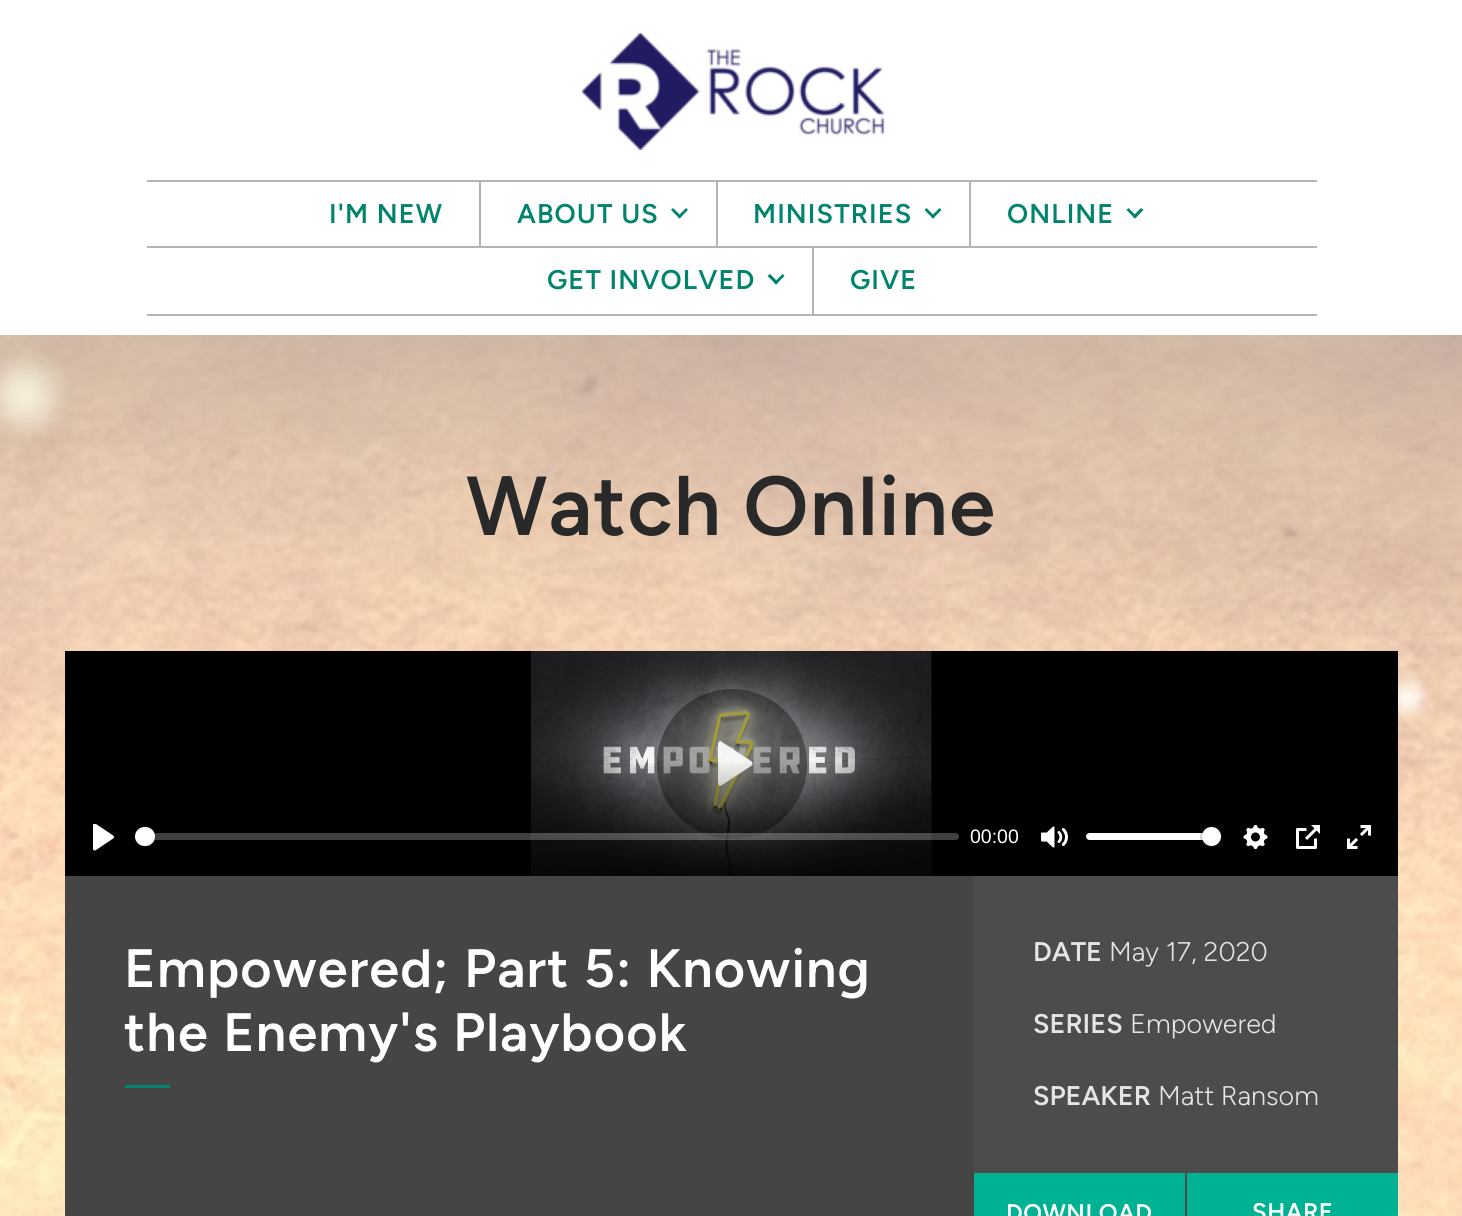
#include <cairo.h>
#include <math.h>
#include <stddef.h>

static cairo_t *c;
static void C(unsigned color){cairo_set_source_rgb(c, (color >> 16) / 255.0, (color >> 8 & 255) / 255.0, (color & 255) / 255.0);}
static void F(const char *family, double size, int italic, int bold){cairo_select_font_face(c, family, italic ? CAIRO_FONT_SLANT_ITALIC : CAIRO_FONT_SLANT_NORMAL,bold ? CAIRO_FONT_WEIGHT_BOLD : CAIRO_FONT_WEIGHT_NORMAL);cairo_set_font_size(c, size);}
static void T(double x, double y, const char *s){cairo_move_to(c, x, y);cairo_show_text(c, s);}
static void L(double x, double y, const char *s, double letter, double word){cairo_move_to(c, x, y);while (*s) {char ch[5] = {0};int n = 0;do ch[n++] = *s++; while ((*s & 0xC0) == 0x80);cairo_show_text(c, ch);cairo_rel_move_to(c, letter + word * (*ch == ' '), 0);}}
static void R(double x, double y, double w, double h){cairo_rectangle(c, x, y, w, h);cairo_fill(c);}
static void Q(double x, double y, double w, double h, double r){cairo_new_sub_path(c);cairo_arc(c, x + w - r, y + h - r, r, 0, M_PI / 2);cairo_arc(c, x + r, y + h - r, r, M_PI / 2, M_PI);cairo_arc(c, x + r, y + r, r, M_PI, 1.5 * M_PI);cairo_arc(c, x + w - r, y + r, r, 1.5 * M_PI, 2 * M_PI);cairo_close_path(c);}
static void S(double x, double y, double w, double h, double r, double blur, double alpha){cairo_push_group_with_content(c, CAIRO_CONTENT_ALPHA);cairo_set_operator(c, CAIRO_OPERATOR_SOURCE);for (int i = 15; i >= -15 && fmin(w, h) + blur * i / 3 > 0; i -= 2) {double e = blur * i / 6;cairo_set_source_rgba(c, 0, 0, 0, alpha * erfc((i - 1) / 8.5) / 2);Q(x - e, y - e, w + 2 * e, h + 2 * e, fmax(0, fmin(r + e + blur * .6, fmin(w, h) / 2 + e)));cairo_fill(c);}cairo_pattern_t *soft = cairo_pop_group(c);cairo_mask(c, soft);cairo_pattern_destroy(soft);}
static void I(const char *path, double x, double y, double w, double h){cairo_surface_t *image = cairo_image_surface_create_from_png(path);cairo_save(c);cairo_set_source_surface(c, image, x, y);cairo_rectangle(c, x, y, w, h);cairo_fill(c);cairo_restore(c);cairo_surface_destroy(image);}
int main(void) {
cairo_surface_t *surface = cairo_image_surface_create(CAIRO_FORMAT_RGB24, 1462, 1216);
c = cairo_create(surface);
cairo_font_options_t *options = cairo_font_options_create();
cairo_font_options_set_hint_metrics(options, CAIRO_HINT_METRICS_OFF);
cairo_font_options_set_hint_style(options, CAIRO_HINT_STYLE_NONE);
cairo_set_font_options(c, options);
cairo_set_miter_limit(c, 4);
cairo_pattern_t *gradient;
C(0xffffff);
cairo_paint(c);
I("1.png",581,32,304,118);
C(0xb4b4b4);
R(147,180,1170,2);
R(147,314,1170,2);
F("Figtree SemiBold",27,0,0);
C(0x00846e);
L(329,223,"I'M NEW",1.1,0);
C(0xb4b4b4);
R(147,246,1170,2);
R(479,182,2,66);
C(0x00846e);
L(517,223,"ABOUT US",1.1,0);
cairo_new_path(c);
cairo_move_to(c,686,208);
cairo_line_to(c,688,210);
cairo_line_to(c,679.5,218.5);
cairo_line_to(c,677.5,216.5);
cairo_close_path(c);
cairo_fill(c);
cairo_new_path(c);
cairo_move_to(c,673,208);
cairo_line_to(c,681.5,216.5);
cairo_line_to(c,679.5,218.5);
cairo_line_to(c,671,210);
cairo_close_path(c);
cairo_fill(c);
C(0xb4b4b4);
R(716,182,2,66);
C(0x00846e);
L(753,223,"MINISTRIES",1.1,0);
cairo_new_path(c);
cairo_move_to(c,939.5,208);
cairo_line_to(c,941.5,210);
cairo_line_to(c,933,218.5);
cairo_line_to(c,931,216.5);
cairo_close_path(c);
cairo_fill(c);
cairo_new_path(c);
cairo_move_to(c,926.5,208);
cairo_line_to(c,935,216.5);
cairo_line_to(c,933,218.5);
cairo_line_to(c,924.5,210);
cairo_close_path(c);
cairo_fill(c);
C(0xb4b4b4);
R(969,182,2,66);
C(0x00846e);
L(1007,223,"ONLINE",1.1,0);
cairo_new_path(c);
cairo_move_to(c,1141,208);
cairo_line_to(c,1143.5,210);
cairo_line_to(c,1135,218.5);
cairo_line_to(c,1132.5,216.5);
cairo_close_path(c);
cairo_fill(c);
cairo_new_path(c);
cairo_move_to(c,1128.5,208);
cairo_line_to(c,1137,216.5);
cairo_line_to(c,1135,218.5);
cairo_line_to(c,1126.5,210);
cairo_close_path(c);
cairo_fill(c);
L(547,289,"GET INVOLVED",1.1,0);
cairo_new_path(c);
cairo_move_to(c,782.5,274);
cairo_line_to(c,784.5,276);
cairo_line_to(c,776,284.5);
cairo_line_to(c,774,282.5);
cairo_close_path(c);
cairo_fill(c);
cairo_new_path(c);
cairo_move_to(c,770,274);
cairo_line_to(c,778.5,282.5);
cairo_line_to(c,776,284.5);
cairo_line_to(c,767.5,276);
cairo_close_path(c);
cairo_fill(c);
C(0xb4b4b4);
R(812,248,2,66);
C(0x00846e);
L(850,289,"GIVE",1.1,0);
I("2.png",0,335,1462,881);
F("Figtree SemiBold",83.5,0,0);
C(0x292929);
L(466,535,"Watch Online",1.1,0);
C(0x000000);
R(65,651,1333,225);
I("3.png",531,651,401,225);
cairo_set_source_rgba(c,0,0,0,0.36);
cairo_arc(c,732,764,75,0,2 * M_PI);
cairo_fill(c);
cairo_set_source_rgba(c,1,1,1,0.9);
cairo_new_path(c);
cairo_move_to(c,751,761);
cairo_line_to(c,722,742);
cairo_curve_to(c,720,740,718,742,718,744);
cairo_line_to(c,718,783);
cairo_curve_to(c,718,785,720,787,722,785);
cairo_line_to(c,751,766);
cairo_curve_to(c,753,765,753,762,751,761);
cairo_close_path(c);
cairo_fill(c);
gradient = cairo_pattern_create_linear(731,760,731,876);
cairo_pattern_add_color_stop_rgba(gradient,0,0,0,0,0);
cairo_pattern_add_color_stop_rgba(gradient,1,0,0,0,.75);
cairo_set_source(c,gradient);
cairo_pattern_destroy(gradient);
R(531,763,401,113);
I("4.png",93,824,21,27);
cairo_set_source_rgba(c,1,1,1,0.25);
Q(135,833,824,7,3.5);
cairo_fill(c);
Q(135,826,20,21,10);
cairo_set_source_rgba(c,0.137,0.157,0.184,0.2);
cairo_stroke(c);
C(0xffffff);
Q(135,827,20,19,9.5);
cairo_fill(c);
F("Liberation Sans",19.5,0,0);
T(970,843,"00:00");
I("5.png",1041,826,27,22);
Q(1086,833,135,7,3.5);
cairo_fill(c);
cairo_arc(c,1211.5,836.5,10.5,0,2 * M_PI);
cairo_set_source_rgba(c,0.137,0.157,0.184,0.2);
cairo_stroke(c);
C(0x23282f);
S(1202,828,19,20,9.5,1,.15);
C(0xffffff);
cairo_arc(c,1211.5,836.5,9.5,0,2 * M_PI);
cairo_fill(c);
I("6.png",1243,825,25,24);
I("7.png",1296,825,24,24);
I("8.png",1347,825,24,24);
C(0x454545);
R(65,876,909,340);
F("Figtree SemiBold",54,0,0);
C(0xffffff);
L(124,987,"Empowered; Part 5: Knowing",1.1,0);
L(124,1051,"the Enemy's Playbook",1.1,0);
C(0x00846e);
R(125,1085,45,3);
C(0x4c4c4c);
R(974,876,424,340);
F("Figtree SemiBold",27,0,0);
C(0xe5e5e5);
T(1033,961,"DATE");
F("Figtree Light",27,0,0);
T(1109,961,"May 17, 2020");
F("Figtree SemiBold",27,0,0);
T(1033,1033,"SERIES");
F("Figtree Light",27,0,0);
T(1130,1033,"Empowered");
F("Figtree SemiBold",27,0,0);
T(1033,1105,"SPEAKER");
F("Figtree Light",27,0,0);
T(1158,1105,"Matt Ransom");
C(0x00b294);
R(974,1173,211,43);
F("Figtree SemiBold",24,0,0);
C(0xffffff);
L(1006,1221,"DOWNLOAD",.5,0);
C(0x00b294);
R(1187,1173,211,43);
C(0xffffff);
L(1252,1220,"SHARE",.5,0);
cairo_surface_write_to_png(surface, "o.png");
cairo_font_options_destroy(options);
cairo_destroy(c);
cairo_surface_destroy(surface);
return 0;
}
